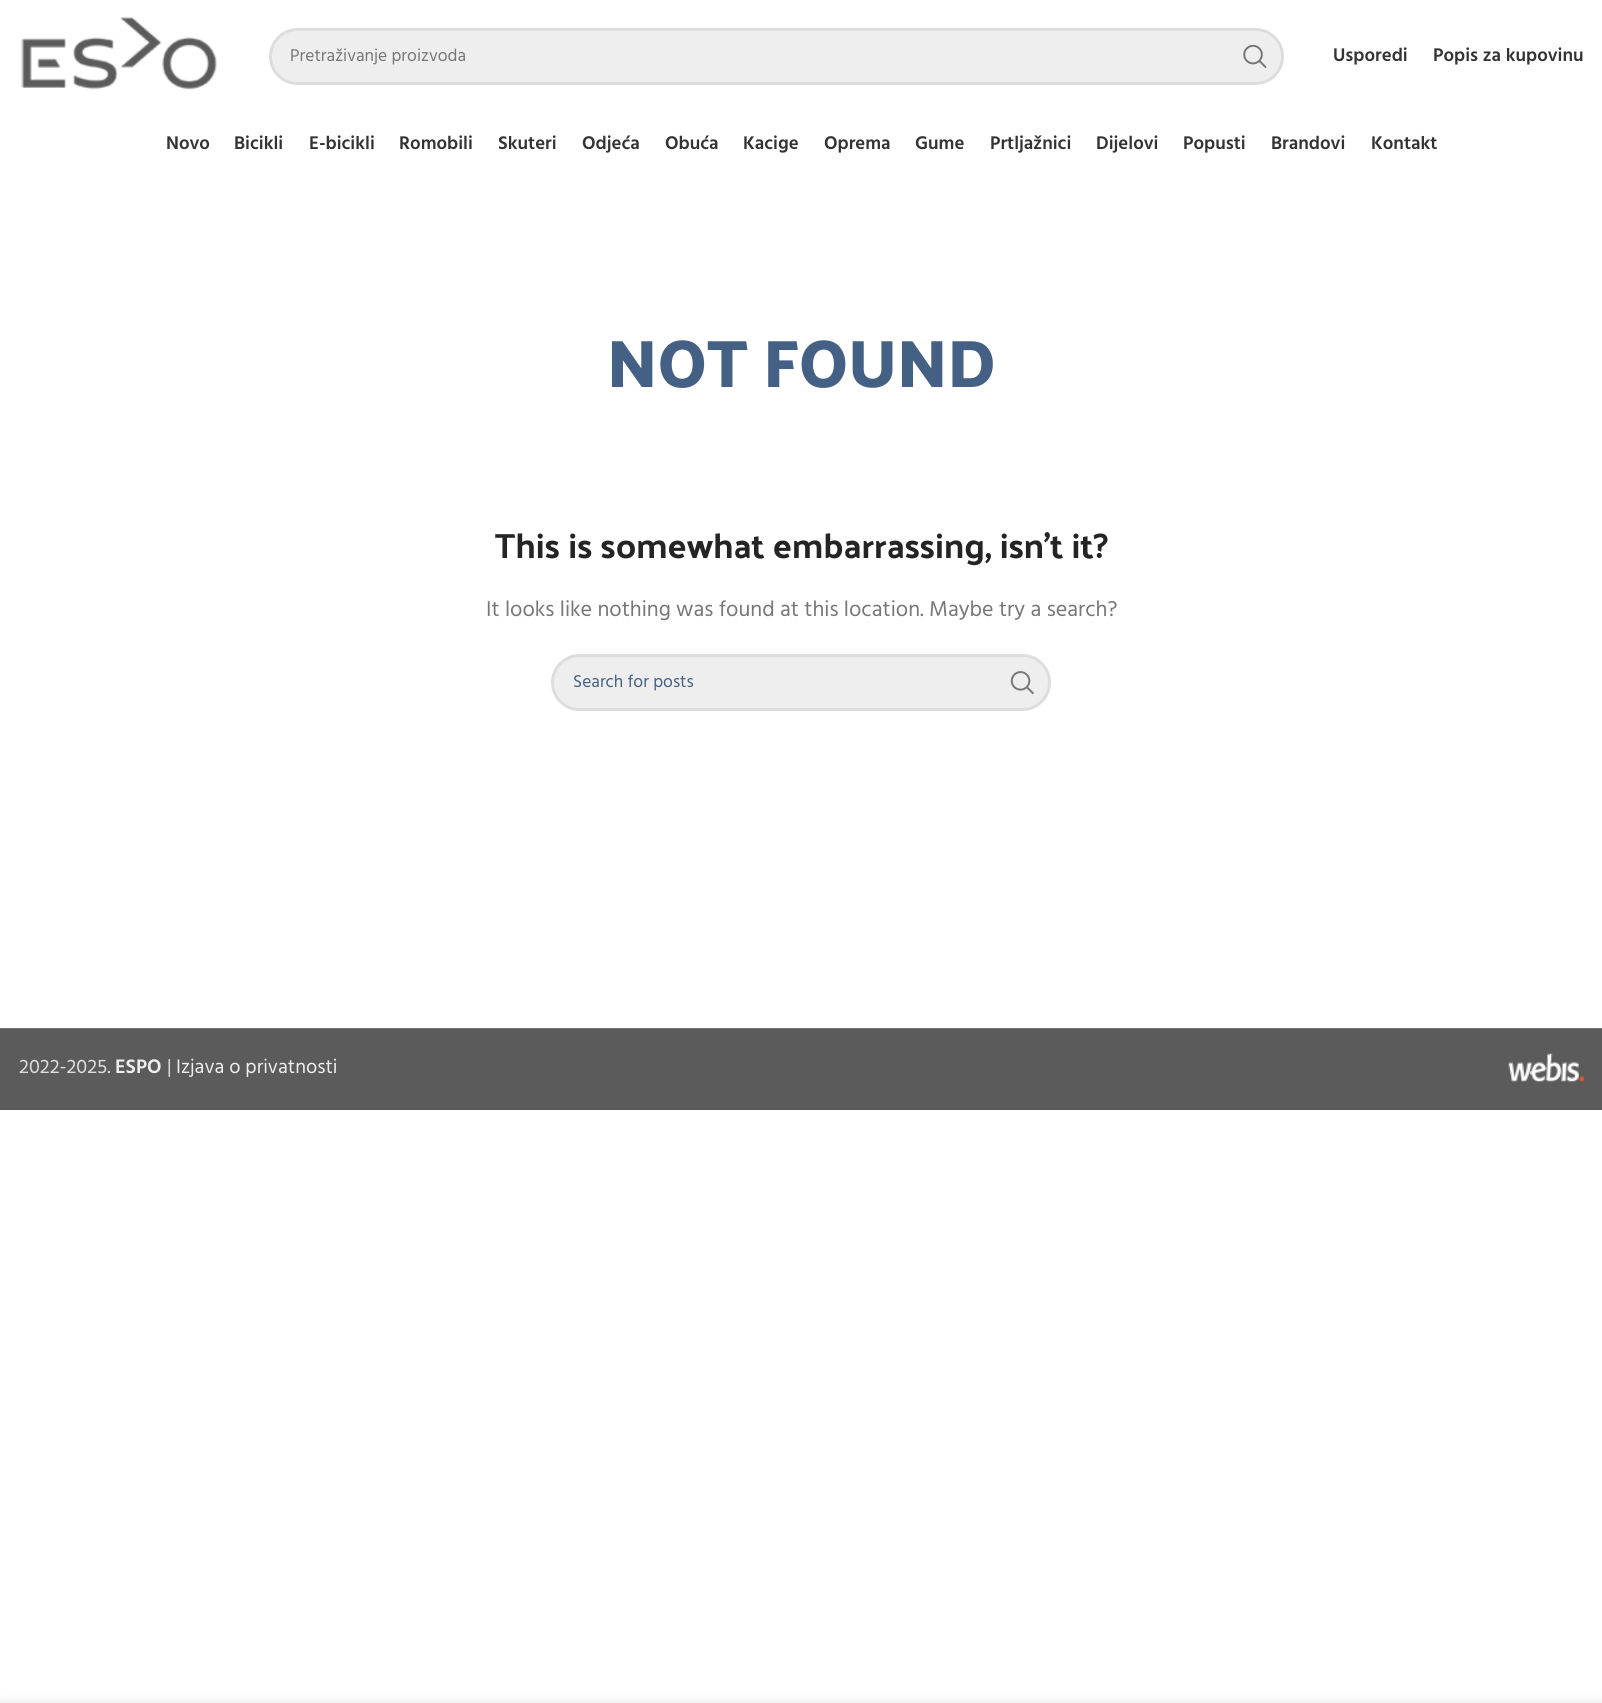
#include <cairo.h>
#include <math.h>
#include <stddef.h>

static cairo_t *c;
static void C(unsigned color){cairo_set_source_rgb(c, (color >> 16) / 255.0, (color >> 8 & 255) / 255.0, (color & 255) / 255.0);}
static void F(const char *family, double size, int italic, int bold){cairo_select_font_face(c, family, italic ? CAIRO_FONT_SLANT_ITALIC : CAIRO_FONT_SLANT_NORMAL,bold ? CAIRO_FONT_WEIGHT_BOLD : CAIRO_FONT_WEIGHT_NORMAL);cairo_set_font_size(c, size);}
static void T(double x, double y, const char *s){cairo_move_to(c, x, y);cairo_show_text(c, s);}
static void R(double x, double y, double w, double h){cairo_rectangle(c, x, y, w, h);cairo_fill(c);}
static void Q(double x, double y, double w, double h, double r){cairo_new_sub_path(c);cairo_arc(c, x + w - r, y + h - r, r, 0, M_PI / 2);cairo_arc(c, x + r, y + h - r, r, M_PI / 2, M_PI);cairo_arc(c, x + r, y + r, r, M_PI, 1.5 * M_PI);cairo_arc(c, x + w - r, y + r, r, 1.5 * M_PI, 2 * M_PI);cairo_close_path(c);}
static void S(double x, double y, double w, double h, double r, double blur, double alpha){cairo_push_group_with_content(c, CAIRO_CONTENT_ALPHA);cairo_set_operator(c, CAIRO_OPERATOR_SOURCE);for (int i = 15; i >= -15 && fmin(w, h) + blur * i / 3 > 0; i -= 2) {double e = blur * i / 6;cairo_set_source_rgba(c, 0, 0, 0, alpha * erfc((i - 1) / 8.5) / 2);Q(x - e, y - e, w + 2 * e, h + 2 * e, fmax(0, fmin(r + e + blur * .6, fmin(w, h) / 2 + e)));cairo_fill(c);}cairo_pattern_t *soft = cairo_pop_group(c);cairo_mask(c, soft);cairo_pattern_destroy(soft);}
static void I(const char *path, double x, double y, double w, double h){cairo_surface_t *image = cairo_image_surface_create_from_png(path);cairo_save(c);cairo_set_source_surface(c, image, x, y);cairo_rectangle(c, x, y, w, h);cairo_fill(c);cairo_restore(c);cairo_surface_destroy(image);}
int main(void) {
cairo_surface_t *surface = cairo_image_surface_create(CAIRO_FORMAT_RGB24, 1602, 1703);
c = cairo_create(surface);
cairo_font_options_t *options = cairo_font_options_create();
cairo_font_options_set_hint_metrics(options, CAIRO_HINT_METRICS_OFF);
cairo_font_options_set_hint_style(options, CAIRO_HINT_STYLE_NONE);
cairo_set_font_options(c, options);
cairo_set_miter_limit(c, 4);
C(0xffffff);
cairo_paint(c);
I("1.png",21,16,196,74);
C(0xeeeeee);
Q(270.5,29.5,1012,54,27);
cairo_fill_preserve(c);
C(0xdddddd);
cairo_set_line_width(c,3);
cairo_stroke(c);
F("Hind",17.5,0,0);
C(0x777777);
T(290,61,"Pretraživanje proizvoda");
I("2.png",1243,44,24,24);
F("Hind SemiBold",18.75,0,0);
C(0x333333);
T(1333,61,"Usporedi");
T(1433,61,"Popis za kupovinu");
T(166,149,"Novo");
T(234,149,"Bicikli");
T(309,149,"E-bicikli");
T(399,149,"Romobili");
T(498,149,"Skuteri");
T(582,149,"Odjeća");
T(665,149,"Obuća");
T(743,149,"Kacige");
T(824,149,"Oprema");
T(915,149,"Gume");
T(990,149,"Prtljažnici");
T(1096,149,"Dijelovi");
T(1183,149,"Popusti");
T(1271,149,"Brandovi");
T(1371,149,"Kontakt");
F("Palanquin Dark SemiBold",67.25,0,0);
C(0x446084);
T(607,387,"NOT FOUND");
F("Palanquin Dark",35,0,0);
C(0x242424);
T(495,558,"This is somewhat embarrassing, isn’t it?");
F("Hind",22,0,0);
C(0x777777);
T(486,616,"It looks like nothing was found at this location. Maybe try a search?");
C(0xeeeeee);
Q(552.5,655.5,497,54,27);
cairo_fill_preserve(c);
C(0xdddddd);
cairo_stroke(c);
F("Hind",17.5,0,0);
C(0x446084);
T(573,687,"Search for posts");
I("3.png",1010,671,24,24);
C(0x5b5b5b);
R(0,1029,1602,81);
C(0x747474);
R(0,1028,1602,1);
F("Hind",20,0,0);
C(0xdedede);
T(19,1073,"2022-2025.");
F("Hind SemiBold",20,0,0);
C(0xefefef);
T(115,1073,"ESPO");
F("Hind",20,0,0);
C(0xdedede);
T(167,1073,"|");
C(0xefefef);
T(176,1073,"Izjava o privatnosti");
I("4.png",1508,1053,76,29);
C(0x000000);
S(0,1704,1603,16,0,5.5,.14);
cairo_surface_write_to_png(surface, "o.png");
cairo_font_options_destroy(options);
cairo_destroy(c);
cairo_surface_destroy(surface);
return 0;
}
